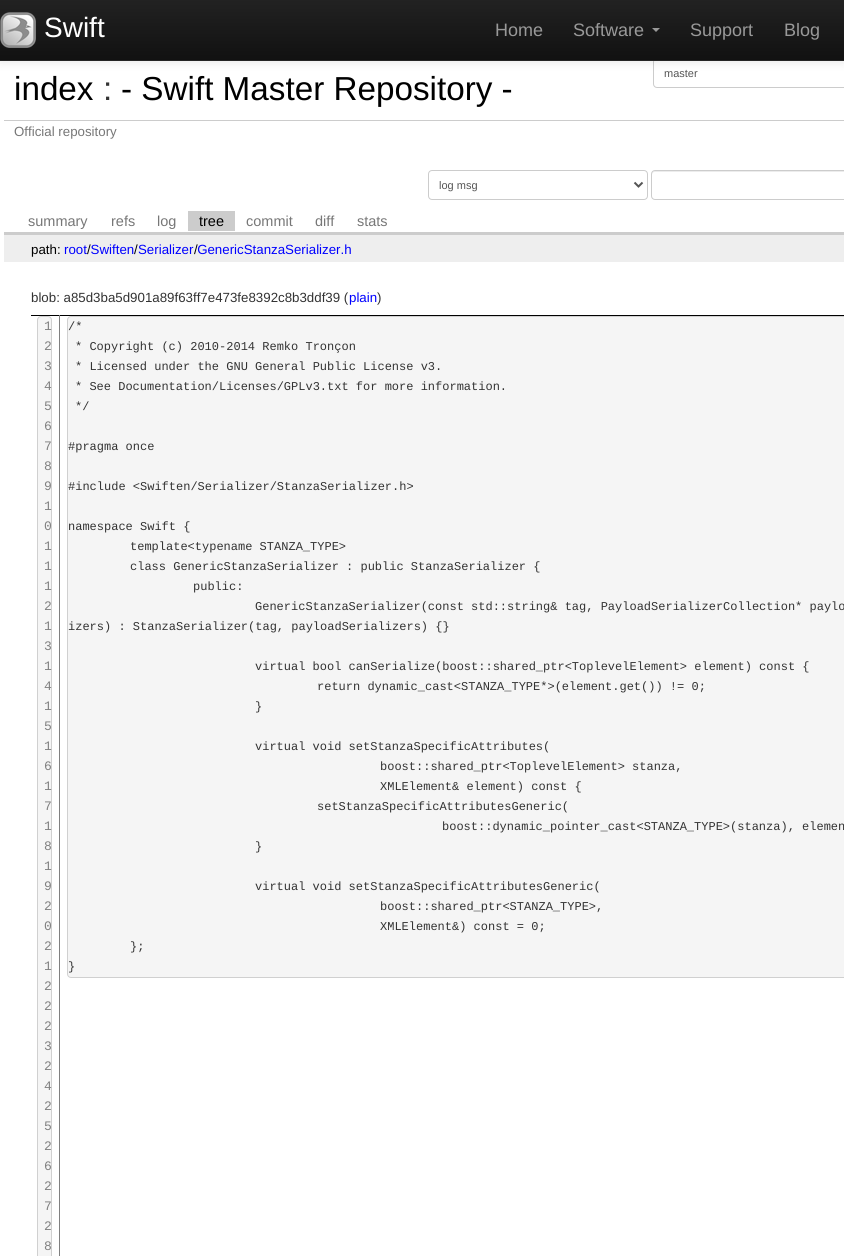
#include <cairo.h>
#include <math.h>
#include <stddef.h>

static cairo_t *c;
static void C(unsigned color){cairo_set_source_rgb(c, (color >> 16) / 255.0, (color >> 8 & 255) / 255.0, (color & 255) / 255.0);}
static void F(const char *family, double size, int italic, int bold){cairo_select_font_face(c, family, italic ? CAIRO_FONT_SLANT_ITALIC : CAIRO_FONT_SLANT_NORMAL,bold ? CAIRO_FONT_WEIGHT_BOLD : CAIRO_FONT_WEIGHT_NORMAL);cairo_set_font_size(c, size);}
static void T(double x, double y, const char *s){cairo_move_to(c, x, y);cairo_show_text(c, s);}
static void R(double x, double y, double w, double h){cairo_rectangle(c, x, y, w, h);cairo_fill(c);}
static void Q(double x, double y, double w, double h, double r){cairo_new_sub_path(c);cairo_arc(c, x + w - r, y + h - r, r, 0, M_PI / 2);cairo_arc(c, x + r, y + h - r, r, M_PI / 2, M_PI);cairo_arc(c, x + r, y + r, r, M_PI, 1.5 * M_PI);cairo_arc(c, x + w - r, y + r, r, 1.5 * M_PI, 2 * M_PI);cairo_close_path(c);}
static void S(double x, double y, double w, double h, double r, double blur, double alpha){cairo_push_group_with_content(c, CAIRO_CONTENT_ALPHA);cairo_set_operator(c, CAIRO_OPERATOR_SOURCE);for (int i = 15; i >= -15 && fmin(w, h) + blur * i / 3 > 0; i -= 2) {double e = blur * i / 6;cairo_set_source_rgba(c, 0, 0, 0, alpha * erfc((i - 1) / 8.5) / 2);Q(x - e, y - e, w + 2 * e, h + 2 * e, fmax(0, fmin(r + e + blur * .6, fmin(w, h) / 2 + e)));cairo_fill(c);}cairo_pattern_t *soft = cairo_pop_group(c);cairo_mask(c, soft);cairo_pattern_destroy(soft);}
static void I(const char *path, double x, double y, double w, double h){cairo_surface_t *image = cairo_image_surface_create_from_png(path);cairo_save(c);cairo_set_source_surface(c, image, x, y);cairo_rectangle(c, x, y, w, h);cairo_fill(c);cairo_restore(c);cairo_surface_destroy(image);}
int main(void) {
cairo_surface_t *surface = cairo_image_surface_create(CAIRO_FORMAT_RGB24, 844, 1256);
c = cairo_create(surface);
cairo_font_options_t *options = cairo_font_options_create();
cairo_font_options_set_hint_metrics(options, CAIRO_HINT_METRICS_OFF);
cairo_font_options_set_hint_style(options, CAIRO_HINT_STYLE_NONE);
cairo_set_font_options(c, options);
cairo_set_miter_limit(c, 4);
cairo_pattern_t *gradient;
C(0xffffff);
cairo_paint(c);
Q(653.5,58.5,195,29,3.5);
C(0xcccccc);
cairo_set_line_width(c,1);
cairo_stroke(c);
C(0x000000);
S(0,1,844,61,0,5,.1);
gradient = cairo_pattern_create_linear(422,0,422,60);
cairo_pattern_add_color_stop_rgba(gradient,0,0.133,0.133,0.133,1);
cairo_pattern_add_color_stop_rgba(gradient,1,0.067,0.067,0.067,1);
cairo_set_source(c,gradient);
cairo_pattern_destroy(gradient);
R(0,0,844,60);
C(0x252525);
R(0,60,844,1);
I("1.png",0,12,36,36);
F("Liberation Sans",28,0,0);
C(0xffffff);
T(44,37,"Swift");
F("Liberation Sans",18,0,0);
C(0x999999);
T(495,36,"Home");
T(573,36,"Software");
cairo_new_path(c);
cairo_move_to(c,652,28);
cairo_line_to(c,660,28);
cairo_line_to(c,656,32);
cairo_close_path(c);
cairo_fill(c);
T(690,36,"Support");
T(784,36,"Blog");
F("Liberation Sans",11,0,0);
C(0x555555);
T(664,77,"master");
F("Liberation Sans",33.25,0,0);
C(0x000000);
T(14,100,"index");
C(0x333333);
T(103,100,":");
C(0x000000);
T(121,100,"- Swift Master Repository -");
C(0xcccccc);
R(4,120,840,1);
F("Liberation Sans",13.3,0,0);
C(0x777777);
T(14,136,"Official repository");
C(0xcccccc);
R(4,232,840,3);
Q(428.5,170.5,219,29,3.5);
cairo_stroke(c);
cairo_new_path(c);
cairo_move_to(c,634.5,182.5);
cairo_line_to(c,638.5,186.5);
cairo_line_to(c,642.5,182.5);
C(0x555555);
cairo_set_line_width(c,2);
cairo_stroke(c);
F("Liberation Sans",11,0,0);
T(439,189,"log msg");
C(0xececec);
cairo_new_path(c);
cairo_move_to(c,655,172);
cairo_line_to(c,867,172);
cairo_curve_to(c,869,172,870,173,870,175);
cairo_line_to(c,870,174);
cairo_curve_to(c,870,172,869,171,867,171);
cairo_line_to(c,655,171);
cairo_curve_to(c,653,171,652,172,652,174);
cairo_line_to(c,652,175);
cairo_curve_to(c,652,173,653,172,655,172);
cairo_close_path(c);
cairo_fill(c);
Q(651.5,170.5,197,29,3.5);
C(0xcccccc);
cairo_set_line_width(c,1);
cairo_stroke(c);
F("Liberation Sans",14.5,0,0);
C(0x777777);
T(28,226,"summary");
T(111,226,"refs");
T(157,226,"log");
C(0xcccccc);
R(188,211,47,20);
C(0x000000);
T(199,226,"tree");
C(0x777777);
T(246,226,"commit");
T(315,226,"diff");
T(357,226,"stats");
C(0xeeeeee);
R(4,235,840,27);
F("Liberation Sans",13.3,0,0);
C(0x000000);
T(31,254,"path:");
C(0x0000ff);
T(64,254,"root Swiften");
C(0x000000);
T(87,254,"/");
T(134,254,"/");
C(0x0000ff);
T(138,254,"Serializer GenericStanzaSerializer.h");
C(0x000000);
T(194,254,"/");
C(0x333333);
T(31,302,"blob: a85d3ba5d901a89f63ff7e473fe8392c8b3ddf39 (");
C(0x0000ff);
T(349,302,"plain");
C(0x333333);
T(377,302,")");
C(0x000000);
R(31,315,813,1);
C(0x808080);
R(59,315,1,941);
C(0xf5f5f5);
Q(37,316,15,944,4);
cairo_fill(c);
Q(37.5,316.5,14,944,3.5);
cairo_set_source_rgba(c,0,0,0,0.15);
cairo_stroke(c);
F("Liberation Mono",13,0,0);
C(0x808080);
T(44,330,"1");
T(44,350,"2");
T(44,370,"3");
T(44,390,"4");
T(44,410,"5");
T(44,430,"6");
T(44,450,"7");
T(44,470,"8");
T(44,490,"9");
T(44,510,"1");
T(44,530,"0");
T(44,550,"1");
T(44,570,"1");
T(44,590,"1");
T(44,610,"2");
T(44,630,"1");
T(44,650,"3");
T(44,670,"1");
T(44,690,"4");
T(44,710,"1");
T(44,730,"5");
T(44,750,"1");
T(44,770,"6");
T(44,790,"1");
T(44,810,"7");
T(44,830,"1");
T(44,850,"8");
T(44,870,"1");
T(44,890,"9");
T(44,910,"2");
T(44,930,"0");
T(44,950,"2");
T(44,970,"1");
T(44,990,"2");
T(44,1010,"2");
T(44,1030,"2");
T(44,1050,"3");
T(44,1070,"2");
T(44,1090,"4");
T(44,1110,"2");
T(44,1130,"5");
T(44,1150,"2");
T(44,1170,"6");
T(44,1190,"2");
T(44,1210,"7");
T(44,1230,"2");
T(44,1250,"8");
C(0xf5f5f5);
Q(67,316,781,662,4);
cairo_fill(c);
Q(67.5,316.5,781,661,3.5);
cairo_set_source_rgba(c,0,0,0,0.15);
cairo_stroke(c);
F("Liberation Mono",12,0,0);
C(0x333333);
T(68,330,"/*");
T(75,350,"* Copyright (c) 2010-2014 Remko Tronçon");
T(75,370,"* Licensed under the GNU General Public License v3.");
T(75,390,"* See Documentation/Licenses/GPLv3.txt for more information.");
T(75,410,"*/");
T(68,450,"#pragma once");
T(68,490,"#include <Swiften/Serializer/StanzaSerializer.h>");
T(68,530,"namespace Swift {");
T(130,550,"template<typename STANZA_TYPE>");
T(130,570,"class GenericStanzaSerializer : public StanzaSerializer {");
T(193,590,"public:");
T(255,610,"GenericStanzaSerializer(const std::string& tag, PayloadSerializerCollection* paylo");
T(68,630,"izers) : StanzaSerializer(tag, payloadSerializers) {}");
T(255,670,"virtual bool canSerialize(boost::shared_ptr<ToplevelElement> element) const {");
T(317,690,"return dynamic_cast<STANZA_TYPE*>(element.get()) != 0;");
T(255,710,"}");
T(255,750,"virtual void setStanzaSpecificAttributes(");
T(380,770,"boost::shared_ptr<ToplevelElement> stanza,");
T(380,790,"XMLElement& element) const {");
T(317,810,"setStanzaSpecificAttributesGeneric(");
T(442,830,"boost::dynamic_pointer_cast<STANZA_TYPE>(stanza), elemen");
T(255,850,"}");
T(255,890,"virtual void setStanzaSpecificAttributesGeneric(");
T(380,910,"boost::shared_ptr<STANZA_TYPE>,");
T(380,930,"XMLElement&) const = 0;");
T(130,950,"};");
T(68,970,"}");
cairo_surface_write_to_png(surface, "o.png");
cairo_font_options_destroy(options);
cairo_destroy(c);
cairo_surface_destroy(surface);
return 0;
}
